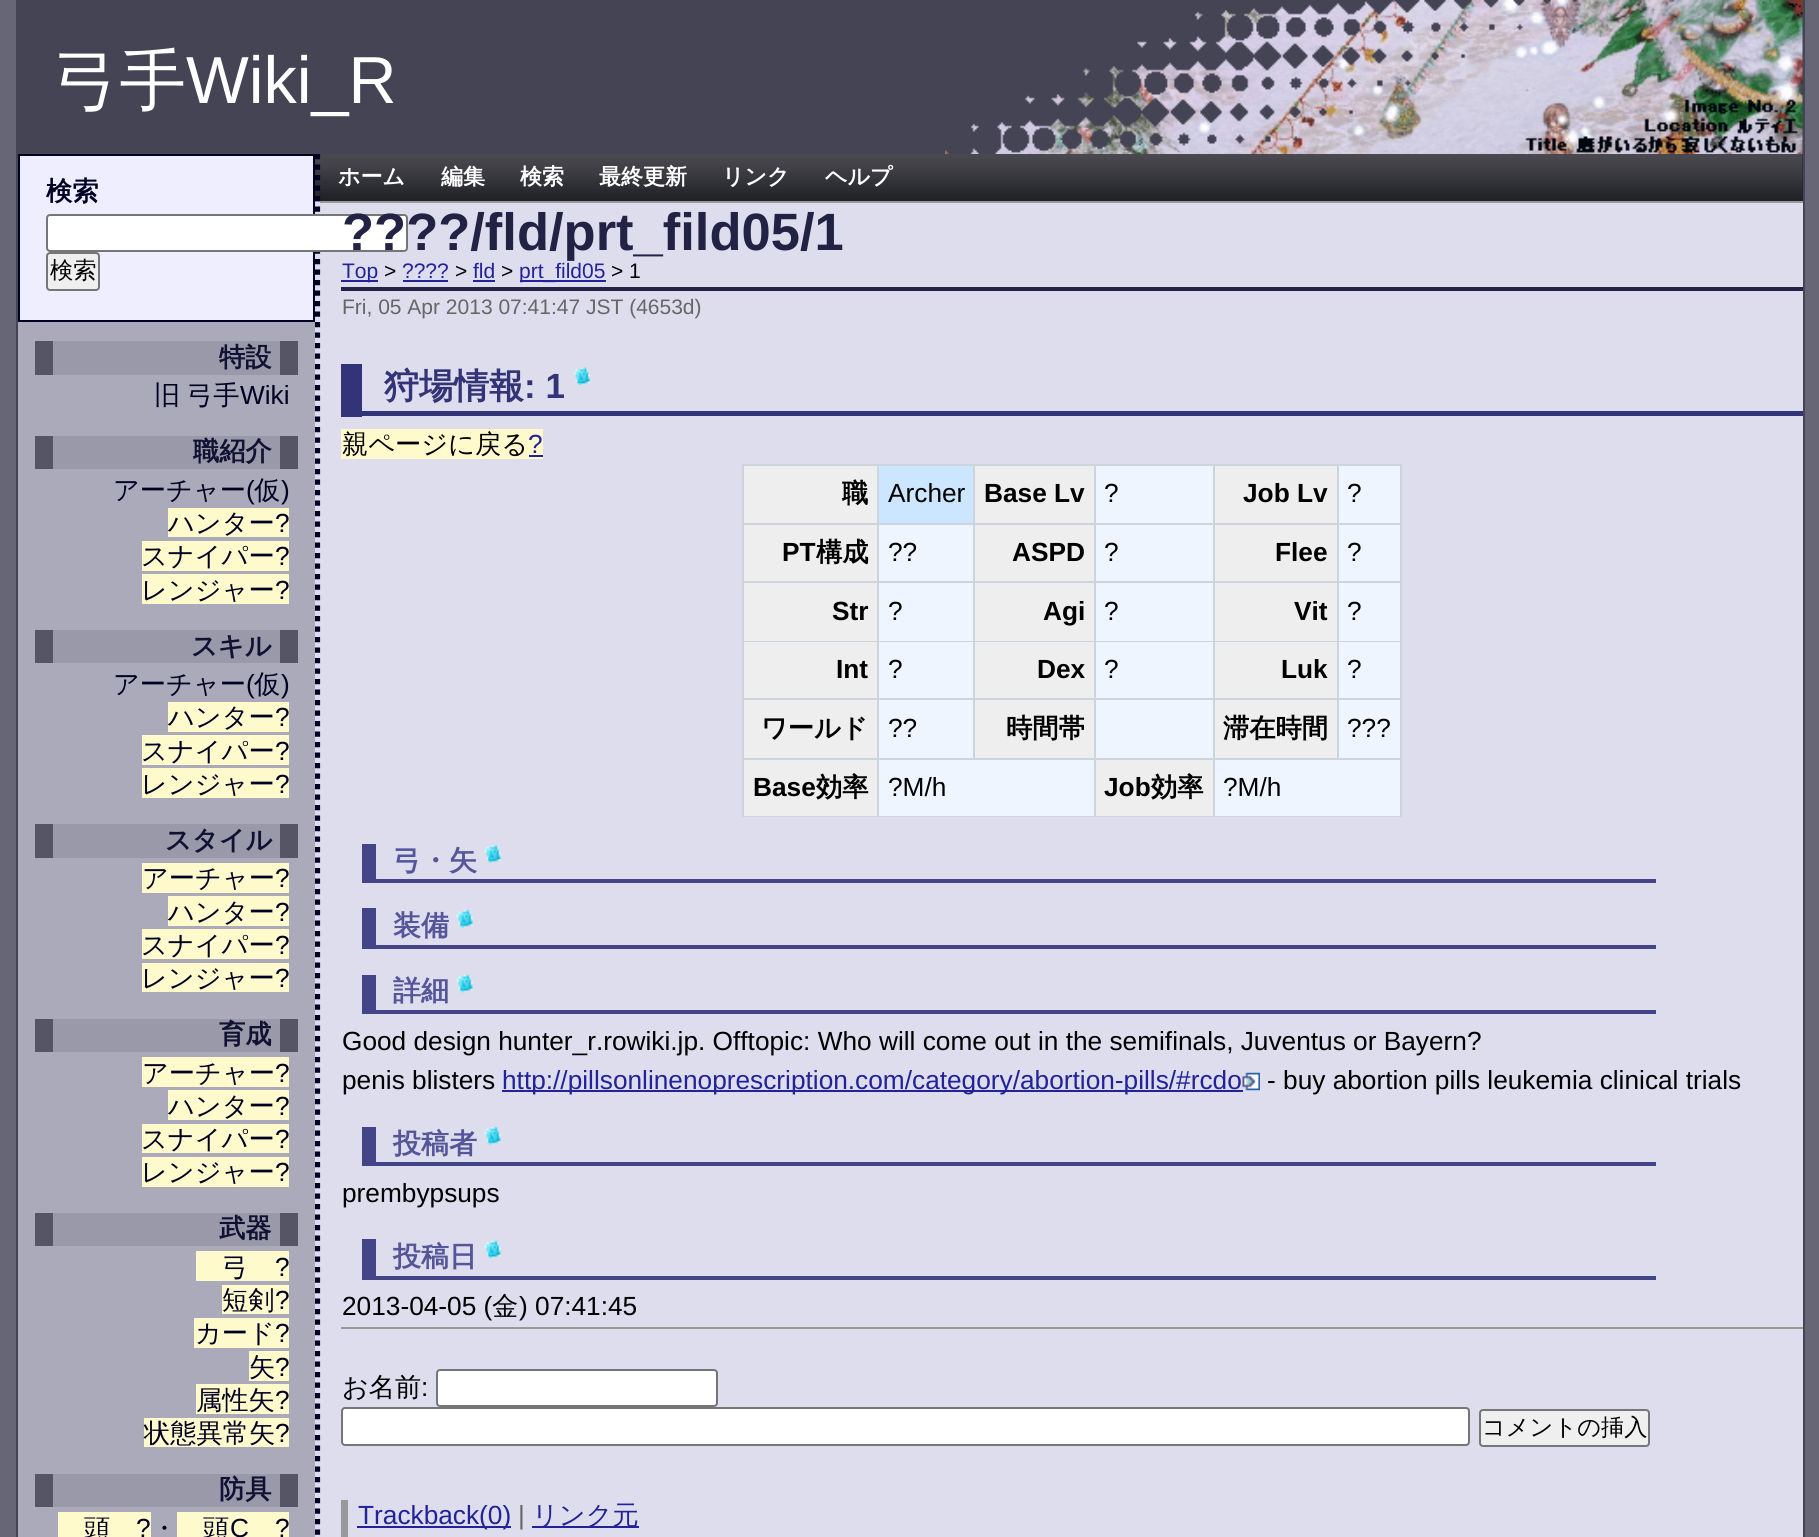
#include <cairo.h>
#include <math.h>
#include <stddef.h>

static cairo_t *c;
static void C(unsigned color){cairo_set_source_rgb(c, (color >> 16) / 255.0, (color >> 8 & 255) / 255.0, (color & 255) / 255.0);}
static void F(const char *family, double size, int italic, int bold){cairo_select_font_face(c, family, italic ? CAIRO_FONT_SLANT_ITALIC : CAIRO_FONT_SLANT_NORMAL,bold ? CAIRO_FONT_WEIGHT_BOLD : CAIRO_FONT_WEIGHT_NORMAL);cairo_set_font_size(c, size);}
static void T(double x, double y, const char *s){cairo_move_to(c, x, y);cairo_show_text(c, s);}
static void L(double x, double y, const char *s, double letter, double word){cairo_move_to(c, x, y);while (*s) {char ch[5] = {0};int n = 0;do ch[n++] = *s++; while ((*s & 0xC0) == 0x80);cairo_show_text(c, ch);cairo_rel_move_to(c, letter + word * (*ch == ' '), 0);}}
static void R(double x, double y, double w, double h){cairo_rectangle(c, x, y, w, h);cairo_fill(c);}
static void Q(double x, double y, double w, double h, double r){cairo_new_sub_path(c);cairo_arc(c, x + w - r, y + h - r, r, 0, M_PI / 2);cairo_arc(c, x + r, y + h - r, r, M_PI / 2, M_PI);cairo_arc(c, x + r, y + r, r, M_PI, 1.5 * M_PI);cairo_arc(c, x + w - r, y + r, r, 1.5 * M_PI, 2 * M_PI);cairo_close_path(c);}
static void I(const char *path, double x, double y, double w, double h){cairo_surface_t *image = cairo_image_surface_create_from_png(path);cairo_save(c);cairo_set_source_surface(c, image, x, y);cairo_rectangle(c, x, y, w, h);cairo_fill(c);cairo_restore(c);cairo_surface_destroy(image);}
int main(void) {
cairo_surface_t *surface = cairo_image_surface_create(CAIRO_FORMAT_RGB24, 1819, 1537);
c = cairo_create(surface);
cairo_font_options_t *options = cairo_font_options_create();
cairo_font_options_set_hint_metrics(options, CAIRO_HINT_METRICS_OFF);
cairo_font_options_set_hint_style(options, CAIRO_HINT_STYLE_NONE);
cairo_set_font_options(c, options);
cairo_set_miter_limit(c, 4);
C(0x666677);
cairo_paint(c);
C(0xddddee);
R(315,201,1488,1336);
C(0x444455);
R(1803,0,2,1537);
R(16,0,2,1537);
R(18,0,1785,154);
I("1.png",945,0,858,154);
F("WenQuanYi Zen Hei Medium",66.5,0,0);
C(0xffffff);
T(53,103,"弓手");
F("Liberation Sans",66.5,0,0);
T(186,103,"Wiki_R");
C(0x222244);
R(315,154,1488,47);
I("2.png",315,154,1488,48);
cairo_new_path(c);
cairo_move_to(c,317.5,154);
cairo_line_to(c,317.5,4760);
C(0x000022);
cairo_set_line_width(c,5.2);
cairo_set_dash(c,(double[]){5.25,5.25},2,0);
cairo_stroke(c);
C(0xeeeeff);
cairo_rectangle(c,19,155,295,166);
cairo_fill_preserve(c);
C(0x000022);
cairo_set_line_width(c,2);
cairo_set_dash(c,NULL,0,0);
cairo_stroke(c);
F("WenQuanYi Zen Hei",26.25,0,1);
T(46,200,"検索");
C(0xffffff);
Q(47,215,360,36,3);
cairo_fill_preserve(c);
C(0x767676);
cairo_stroke(c);
C(0xefefef);
Q(47,253,52,37,3);
cairo_fill_preserve(c);
C(0x767676);
cairo_stroke(c);
F("WenQuanYi Zen Hei Medium",23.25,0,0);
C(0x000000);
T(50,278,"検索");
C(0xaaaabb);
R(18,322,297,1215);
C(0x9999aa);
R(53,341,227,34);
C(0x555566);
R(280,341,18,34);
R(35,341,18,34);
F("WenQuanYi Zen Hei",26.25,0,1);
C(0x111133);
T(219,366,"特設");
F("WenQuanYi Zen Hei Medium",26.25,0,0);
C(0x000022);
L(154,404,"旧 弓手",0,-1);
F("Liberation Sans",26.25,0,0);
T(240,404,"Wiki");
C(0x9999aa);
R(53,436,227,33);
C(0x555566);
R(280,436,18,33);
R(35,436,18,33);
F("WenQuanYi Zen Hei",26.25,0,1);
C(0x111133);
T(193,460,"職紹介");
F("WenQuanYi Zen Hei Medium",26.25,0,0);
C(0x000022);
T(113,499,"アーチャー");
F("Liberation Sans",26.25,0,0);
T(246,499,"(");
F("WenQuanYi Zen Hei Medium",26.25,0,0);
T(254,499,"仮");
F("Liberation Sans",26.25,0,0);
T(281,499,")");
C(0xfffacc);
R(168,508,121,29);
F("WenQuanYi Zen Hei Medium",26.25,0,0);
C(0x000022);
T(168,532,"ハンター");
F("Liberation Sans",26.25,0,0);
T(275,532,"?");
C(0xfffacc);
R(142,541,147,30);
F("WenQuanYi Zen Hei Medium",26.25,0,0);
C(0x000022);
T(141,565,"スナイパー");
F("Liberation Sans",26.25,0,0);
T(275,565,"?");
C(0xfffacc);
R(142,574,147,30);
F("WenQuanYi Zen Hei Medium",26.25,0,0);
C(0x000022);
T(141,599,"レンジャー");
F("Liberation Sans",26.25,0,0);
T(275,599,"?");
C(0x9999aa);
R(53,630,227,33);
C(0x555566);
R(280,630,18,33);
R(35,630,18,33);
F("WenQuanYi Zen Hei",26.25,0,1);
C(0x111133);
T(191,655,"スキル");
F("WenQuanYi Zen Hei Medium",26.25,0,0);
C(0x000022);
T(113,693,"アーチャー");
F("Liberation Sans",26.25,0,0);
T(246,693,"(");
F("WenQuanYi Zen Hei Medium",26.25,0,0);
T(254,693,"仮");
F("Liberation Sans",26.25,0,0);
T(281,693,")");
C(0xfffacc);
R(168,702,121,30);
F("WenQuanYi Zen Hei Medium",26.25,0,0);
C(0x000022);
T(168,726,"ハンター");
F("Liberation Sans",26.25,0,0);
T(275,726,"?");
C(0xfffacc);
R(142,735,147,30);
F("WenQuanYi Zen Hei Medium",26.25,0,0);
C(0x000022);
T(141,760,"スナイパー");
F("Liberation Sans",26.25,0,0);
T(275,760,"?");
C(0xfffacc);
R(142,768,147,30);
F("WenQuanYi Zen Hei Medium",26.25,0,0);
C(0x000022);
T(141,793,"レンジャー");
F("Liberation Sans",26.25,0,0);
T(275,793,"?");
C(0x9999aa);
R(53,824,227,34);
C(0x555566);
R(280,824,18,34);
R(35,824,18,34);
F("WenQuanYi Zen Hei",26.25,0,1);
C(0x111133);
T(165,849,"スタイル");
C(0xfffacc);
R(142,863,147,30);
F("WenQuanYi Zen Hei Medium",26.25,0,0);
C(0x000022);
T(142,887,"アーチャー");
F("Liberation Sans",26.25,0,0);
T(275,887,"?");
C(0xfffacc);
R(168,896,121,30);
F("WenQuanYi Zen Hei Medium",26.25,0,0);
C(0x000022);
T(168,921,"ハンター");
F("Liberation Sans",26.25,0,0);
T(275,921,"?");
C(0xfffacc);
R(142,929,147,30);
F("WenQuanYi Zen Hei Medium",26.25,0,0);
C(0x000022);
T(141,954,"スナイパー");
F("Liberation Sans",26.25,0,0);
T(275,954,"?");
C(0xfffacc);
R(142,963,147,29);
F("WenQuanYi Zen Hei Medium",26.25,0,0);
C(0x000022);
T(141,987,"レンジャー");
F("Liberation Sans",26.25,0,0);
T(275,987,"?");
C(0x9999aa);
R(53,1019,227,33);
C(0x555566);
R(280,1019,18,33);
R(35,1019,18,33);
F("WenQuanYi Zen Hei",26.25,0,1);
C(0x111133);
T(219,1043,"育成");
C(0xfffacc);
R(142,1057,147,30);
F("WenQuanYi Zen Hei Medium",26.25,0,0);
C(0x000022);
T(142,1082,"アーチャー");
F("Liberation Sans",26.25,0,0);
T(275,1082,"?");
C(0xfffacc);
R(168,1090,121,30);
F("WenQuanYi Zen Hei Medium",26.25,0,0);
C(0x000022);
T(168,1115,"ハンター");
F("Liberation Sans",26.25,0,0);
T(275,1115,"?");
C(0xfffacc);
R(142,1124,147,29);
F("WenQuanYi Zen Hei Medium",26.25,0,0);
C(0x000022);
T(141,1148,"スナイパー");
F("Liberation Sans",26.25,0,0);
T(275,1148,"?");
C(0xfffacc);
R(142,1157,147,30);
F("WenQuanYi Zen Hei Medium",26.25,0,0);
C(0x000022);
T(141,1181,"レンジャー");
F("Liberation Sans",26.25,0,0);
T(275,1181,"?");
C(0x9999aa);
R(53,1213,227,33);
C(0x555566);
R(280,1213,18,33);
R(35,1213,18,33);
F("WenQuanYi Zen Hei",26.25,0,1);
C(0x111133);
T(219,1237,"武器");
C(0xfffacc);
R(196,1251,93,30);
F("WenQuanYi Zen Hei Medium",26.25,0,0);
C(0x000022);
T(222,1276,"弓");
F("Liberation Sans",26.25,0,0);
T(275,1276,"?");
C(0xfffacc);
R(222,1285,67,29);
F("WenQuanYi Zen Hei Medium",26.25,0,0);
C(0x000022);
T(222,1309,"短剣");
F("Liberation Sans",26.25,0,0);
T(275,1309,"?");
C(0xfffacc);
R(194,1318,95,30);
F("WenQuanYi Zen Hei Medium",26.25,0,0);
C(0x000022);
T(195,1342,"カード");
F("Liberation Sans",26.25,0,0);
T(275,1342,"?");
C(0xfffacc);
R(249,1351,40,30);
F("WenQuanYi Zen Hei Medium",26.25,0,0);
C(0x000022);
T(249,1376,"矢");
F("Liberation Sans",26.25,0,0);
T(275,1376,"?");
C(0xfffacc);
R(196,1384,93,30);
F("WenQuanYi Zen Hei Medium",26.25,0,0);
C(0x000022);
T(196,1409,"属性矢");
F("Liberation Sans",26.25,0,0);
T(275,1409,"?");
C(0xfffacc);
R(144,1418,145,29);
F("WenQuanYi Zen Hei Medium",26.25,0,0);
C(0x000022);
T(144,1442,"状態異常矢");
F("Liberation Sans",26.25,0,0);
T(275,1442,"?");
C(0x9999aa);
R(53,1474,227,33);
C(0x555566);
R(280,1474,18,33);
R(35,1474,18,33);
F("WenQuanYi Zen Hei",26.25,0,1);
C(0x111133);
T(219,1498,"防具");
C(0xfffacc);
R(58,1512,93,25);
F("WenQuanYi Zen Hei Medium",26.25,0,0);
C(0x000022);
T(84,1537,"頭");
F("Liberation Sans",26.25,0,0);
T(136,1537,"?");
F("WenQuanYi Zen Hei Medium",26.25,0,0);
T(151,1537,"・");
C(0xfffacc);
R(177,1512,112,25);
C(0x000022);
T(203,1537,"頭");
F("Liberation Sans",26.25,0,0);
T(230,1537,"C");
T(275,1537,"?");
F("WenQuanYi Zen Hei",22,0,1);
C(0xffffff);
T(338,184,"ホーム");
T(441,184,"編集");
T(520,184,"検索");
T(599,184,"最終更新");
T(722,184,"リンク");
T(825,184,"ヘルプ");
C(0x999999);
R(320,201,1483,2);
C(0x222244);
R(341,287,1462,4);
F("Liberation Sans",52.5,0,1);
T(342,250,"?\077?\077/fld/prt_fild05/1");
C(0x222299);
R(341,280,37,2);
F("Liberation Sans",21,0,0);
T(342,278,"Top");
C(0x000000);
T(384,278,">");
C(0x222299);
T(402,278,"?\077?\077");
R(403,280,45,2);
C(0x000000);
T(455,278,">");
C(0x222299);
T(473,278,"fld");
R(473,280,22,2);
C(0x000000);
T(501,278,">");
C(0x222299);
R(520,280,86,2);
T(519,278,"prt_fild05");
C(0x000000);
T(611,278,"> 1");
C(0x666666);
T(342,314,"Fri, 05 Apr 2013 07:41:47 JST (4653d)");
C(0x333377);
R(362,411,1441,5);
R(341,364,21,53);
F("WenQuanYi Zen Hei",35,0,1);
T(384,398,"狩場情報");
F("Liberation Sans",35,0,1);
T(524,398,": 1");
I("3.png",574,367,16,18);
C(0xfffacc);
R(341,429,202,30);
F("WenQuanYi Zen Hei Medium",26.25,0,0);
C(0x000000);
T(342,453,"親ページに戻る");
F("Liberation Sans",26.25,0,0);
C(0x222299);
T(528,453,"?");
R(529,455,14,2);
C(0xccd5dd);
R(742,464,660,353);
C(0xeeeeee);
R(744,466,133,57);
F("WenQuanYi Zen Hei",26.25,0,1);
C(0x000000);
T(842,502,"職");
C(0xcce6ff);
R(879,466,94,57);
F("Liberation Sans",26.25,0,0);
C(0x000000);
T(888,502,"Archer");
C(0xeeeeee);
R(975,466,119,57);
F("Liberation Sans",26.25,0,1);
C(0x000000);
T(984,502,"Base Lv");
C(0xeef5ff);
R(1096,466,117,57);
F("Liberation Sans",26.25,0,0);
C(0x000000);
T(1104,502,"?");
C(0xeeeeee);
R(1215,466,122,57);
F("Liberation Sans",26.25,0,1);
C(0x000000);
T(1243,502,"Job Lv");
C(0xeef5ff);
R(1339,466,61,57);
F("Liberation Sans",26.25,0,0);
C(0x000000);
T(1347,502,"?");
C(0xeeeeee);
R(744,525,133,56);
F("Liberation Sans",26.25,0,1);
C(0x000000);
T(782,561,"PT");
F("WenQuanYi Zen Hei",26.25,0,1);
T(816,561,"構成");
C(0xeef5ff);
R(879,525,94,56);
F("Liberation Sans",26.25,0,0);
C(0x000000);
T(888,561,"?\077");
C(0xeeeeee);
R(975,525,119,56);
F("Liberation Sans",26.25,0,1);
C(0x000000);
T(1012,561,"ASPD");
C(0xeef5ff);
R(1096,525,117,56);
F("Liberation Sans",26.25,0,0);
C(0x000000);
T(1104,561,"?");
C(0xeeeeee);
R(1215,525,122,56);
F("Liberation Sans",26.25,0,1);
C(0x000000);
T(1275,561,"Flee");
C(0xeef5ff);
R(1339,525,61,56);
F("Liberation Sans",26.25,0,0);
C(0x000000);
T(1347,561,"?");
C(0xeeeeee);
R(744,583,133,58);
F("Liberation Sans",26.25,0,1);
C(0x000000);
T(832,620,"Str");
C(0xeef5ff);
R(879,583,94,58);
F("Liberation Sans",26.25,0,0);
C(0x000000);
T(888,620,"?");
C(0xeeeeee);
R(975,583,119,58);
F("Liberation Sans",26.25,0,1);
C(0x000000);
T(1043,620,"Agi");
C(0xeef5ff);
R(1096,583,117,58);
F("Liberation Sans",26.25,0,0);
C(0x000000);
T(1104,620,"?");
C(0xeeeeee);
R(1215,583,122,58);
F("Liberation Sans",26.25,0,1);
C(0x000000);
T(1294,620,"Vit");
C(0xeef5ff);
R(1339,583,61,58);
F("Liberation Sans",26.25,0,0);
C(0x000000);
T(1347,620,"?");
C(0xeeeeee);
R(744,642,133,56);
F("Liberation Sans",26.25,0,1);
C(0x000000);
T(836,678,"Int");
C(0xeef5ff);
R(879,642,94,56);
F("Liberation Sans",26.25,0,0);
C(0x000000);
T(888,678,"?");
C(0xeeeeee);
R(975,642,119,56);
F("Liberation Sans",26.25,0,1);
C(0x000000);
T(1037,678,"Dex");
C(0xeef5ff);
R(1096,642,117,56);
F("Liberation Sans",26.25,0,0);
C(0x000000);
T(1104,678,"?");
C(0xeeeeee);
R(1215,642,122,56);
F("Liberation Sans",26.25,0,1);
C(0x000000);
T(1281,678,"Luk");
C(0xeef5ff);
R(1339,642,61,56);
F("Liberation Sans",26.25,0,0);
C(0x000000);
T(1347,678,"?");
C(0xeeeeee);
R(744,700,133,58);
F("WenQuanYi Zen Hei",26.25,0,1);
C(0x000000);
T(761,737,"ワールド");
C(0xeef5ff);
R(879,700,94,58);
F("Liberation Sans",26.25,0,0);
C(0x000000);
T(888,737,"?\077");
C(0xeeeeee);
R(975,700,119,58);
F("WenQuanYi Zen Hei",26.25,0,1);
C(0x000000);
T(1006,737,"時間帯");
C(0xeef5ff);
R(1096,700,117,58);
C(0xeeeeee);
R(1215,700,122,58);
C(0x000000);
T(1223,737,"滞在時間");
C(0xeef5ff);
R(1339,700,61,58);
F("Liberation Sans",26.25,0,0);
C(0x000000);
T(1347,737,"?\077?");
C(0xeeeeee);
R(744,760,133,56);
F("Liberation Sans",26.25,0,1);
C(0x000000);
T(753,796,"Base");
F("WenQuanYi Zen Hei",26.25,0,1);
T(816,796,"効率");
C(0xeef5ff);
R(879,760,215,56);
F("Liberation Sans",26.25,0,0);
C(0x000000);
T(888,796,"?M/h");
C(0xeeeeee);
R(1096,760,117,56);
F("Liberation Sans",26.25,0,1);
C(0x000000);
T(1104,796,"Job");
F("WenQuanYi Zen Hei",26.25,0,1);
T(1151,796,"効率");
C(0xeef5ff);
R(1215,760,185,56);
F("Liberation Sans",26.25,0,0);
C(0x000000);
T(1223,796,"?M/h");
C(0x444488);
R(362,879,1294,4);
R(362,844,14,35);
F("WenQuanYi Zen Hei",28,0,1);
C(0x555599);
T(393,870,"弓・矢");
I("4.png",484,845,17,18);
C(0x444488);
R(376,945,1280,4);
R(362,908,14,41);
C(0x555599);
T(393,935,"装備");
I("5.png",456,910,17,18);
C(0x444488);
R(362,1010,1294,4);
R(362,975,14,35);
C(0x555599);
T(393,1000,"詳細");
I("6.png",456,974,17,19);
F("Liberation Sans",26.25,0,0);
C(0x000000);
T(342,1050,"Good design hunter_r.rowiki.jp. Offtopic: Who will come out in the semifinals, Juventus or Bayern?");
T(342,1089,"penis blisters");
C(0x222299);
R(502,1090,741,2);
T(502,1089,"http://pillsonlinenoprescription.com/category/abortion-pills/#rcdo");
I("7.png",1242,1072,18,19);
C(0x000000);
T(1267,1089,"- buy abortion pills leukemia clinical trials");
C(0x444488);
R(376,1162,1280,4);
R(362,1127,14,39);
F("WenQuanYi Zen Hei",28,0,1);
C(0x555599);
T(393,1153,"投稿者");
I("5.png",484,1127,17,18);
F("Liberation Sans",26.25,0,0);
C(0x000000);
T(342,1202,"prembypsups");
C(0x444488);
R(362,1276,1294,4);
R(362,1239,14,37);
F("WenQuanYi Zen Hei",28,0,1);
C(0x555599);
T(393,1266,"投稿日");
I("6.png",484,1240,17,19);
F("Liberation Sans",26.25,0,0);
C(0x000000);
T(342,1315,"2013-04-05 (");
F("WenQuanYi Zen Hei Medium",26.25,0,0);
T(492,1315,"金");
F("Liberation Sans",26.25,0,0);
T(519,1315,") 07:41:45");
C(0x999999);
R(341,1327,1462,2);
F("WenQuanYi Zen Hei Medium",26.25,0,0);
C(0x000000);
T(342,1396,"お名前");
F("Liberation Sans",26.25,0,0);
T(421,1396,":");
C(0xffffff);
Q(437,1370,280,36,3);
cairo_fill_preserve(c);
C(0x767676);
cairo_stroke(c);
C(0xffffff);
Q(342,1408,1127,37,3);
cairo_fill_preserve(c);
C(0x767676);
cairo_stroke(c);
C(0xefefef);
Q(1480,1410,169,36,3);
cairo_fill_preserve(c);
C(0x767676);
cairo_stroke(c);
F("WenQuanYi Zen Hei Medium",23.25,0,0);
C(0x000000);
T(1482,1435,"コメントの挿入");
C(0x999999);
R(341,1500,7,37);
C(0x222299);
R(357,1526,154,2);
F("Liberation Sans",26.25,0,0);
T(358,1524,"Trackback(0)");
C(0x666666);
T(518,1524,"|");
C(0x222299);
R(532,1526,107,2);
F("WenQuanYi Zen Hei Medium",26.25,0,0);
T(532,1524,"リンク元");
cairo_surface_write_to_png(surface, "o.png");
cairo_font_options_destroy(options);
cairo_destroy(c);
cairo_surface_destroy(surface);
return 0;
}
